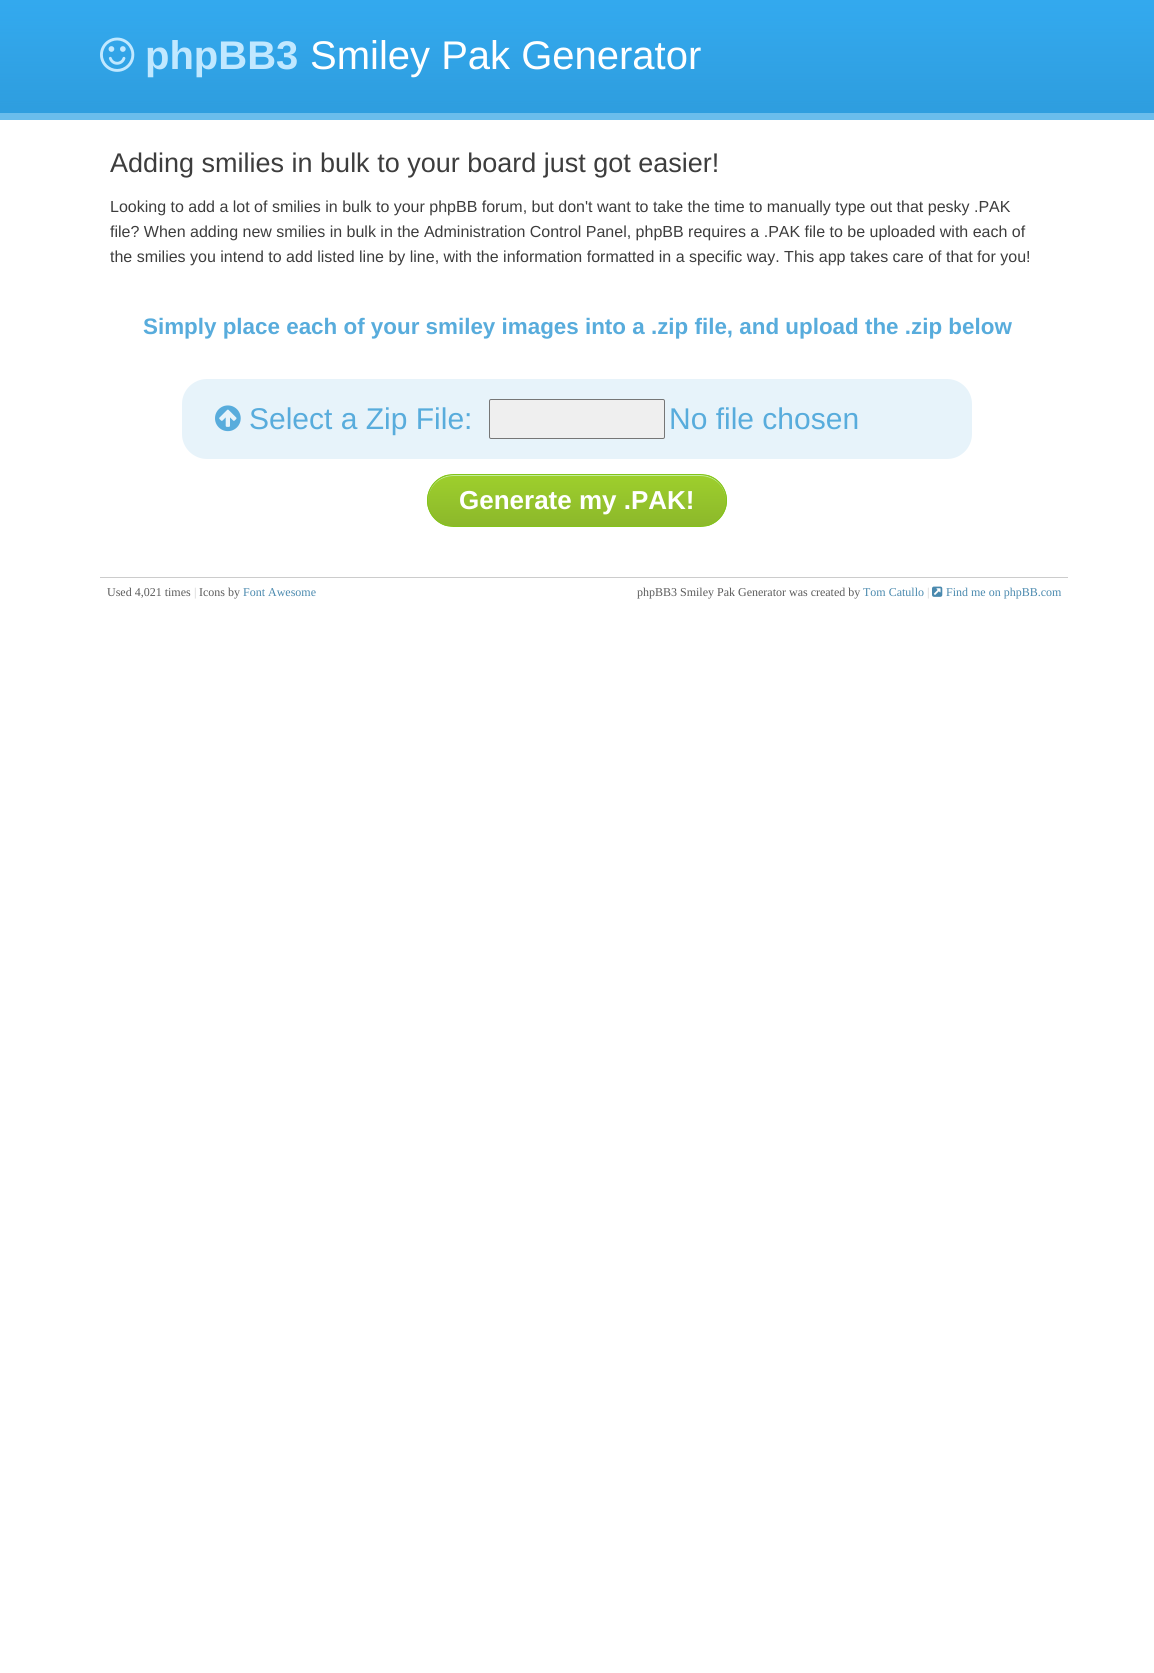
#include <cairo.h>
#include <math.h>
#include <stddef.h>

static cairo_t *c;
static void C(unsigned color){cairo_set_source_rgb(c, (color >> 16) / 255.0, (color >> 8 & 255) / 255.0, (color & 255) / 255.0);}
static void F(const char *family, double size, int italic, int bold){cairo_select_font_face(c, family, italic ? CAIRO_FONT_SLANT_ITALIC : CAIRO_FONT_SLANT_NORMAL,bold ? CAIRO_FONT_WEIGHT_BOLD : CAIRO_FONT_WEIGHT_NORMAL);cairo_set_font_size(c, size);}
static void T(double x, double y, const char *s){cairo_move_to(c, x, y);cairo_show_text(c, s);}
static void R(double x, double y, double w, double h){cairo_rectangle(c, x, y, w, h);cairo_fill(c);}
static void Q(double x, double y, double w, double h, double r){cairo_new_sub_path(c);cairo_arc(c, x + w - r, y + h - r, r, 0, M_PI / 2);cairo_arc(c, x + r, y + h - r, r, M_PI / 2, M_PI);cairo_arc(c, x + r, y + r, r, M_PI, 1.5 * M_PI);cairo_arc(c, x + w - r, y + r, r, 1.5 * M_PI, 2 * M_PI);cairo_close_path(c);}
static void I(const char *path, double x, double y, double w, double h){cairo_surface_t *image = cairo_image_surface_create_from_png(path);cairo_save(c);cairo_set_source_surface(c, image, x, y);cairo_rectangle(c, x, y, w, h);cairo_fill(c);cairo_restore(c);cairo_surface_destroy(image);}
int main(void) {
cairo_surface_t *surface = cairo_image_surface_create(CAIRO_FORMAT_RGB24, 1154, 1673);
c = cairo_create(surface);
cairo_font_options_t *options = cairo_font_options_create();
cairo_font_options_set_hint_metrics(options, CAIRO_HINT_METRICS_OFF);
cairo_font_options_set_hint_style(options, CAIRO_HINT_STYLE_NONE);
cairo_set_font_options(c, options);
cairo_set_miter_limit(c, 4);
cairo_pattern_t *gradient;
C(0xffffff);
cairo_paint(c);
I("1.png",0,0,1154,120);
I("2.png",100,37,35,35);
F("Liberation Sans",40,0,1);
C(0xc1e8ff);
T(145,69,"phpBB3");
F("Liberation Sans",40,0,0);
C(0xffffff);
T(310,69,"Smiley Pak Generator");
F("Liberation Sans",27,0,0);
C(0x3d3d3d);
T(110,172,"Adding smilies in bulk to your board just got easier!");
F("Liberation Sans",16,0,0);
T(110,212,"Looking to add a lot of smilies in bulk to your phpBB forum, but don't want to take the time to manually type out that pesky .PAK");
T(110,237,"file? When adding new smilies in bulk in the Administration Control Panel, phpBB requires a .PAK file to be uploaded with each of");
T(110,262,"the smilies you intend to add listed line by line, with the information formatted in a specific way. This app takes care of that for you!");
F("Liberation Sans",22.4,0,1);
C(0x58acdc);
T(143,334,"Simply place each of your smiley images into a .zip file, and upload the .zip below");
C(0xe7f3fa);
Q(182,379,790,80,25);
cairo_fill(c);
I("3.png",215,405,26,27);
F("Liberation Sans",30,0,0);
C(0x58acdc);
T(249,429,"Select a Zip File:");
C(0xefefef);
Q(489.5,399.5,175,39,1.5);
cairo_fill_preserve(c);
C(0x767676);
cairo_set_line_width(c,1);
cairo_stroke(c);
C(0x58acdc);
T(669,429,"No file chosen");
cairo_save(c);
Q(427,474,300,53,26.5);
cairo_clip(c);
gradient = cairo_pattern_create_linear(428,475,428,526);
cairo_pattern_add_color_stop_rgba(gradient,.05,0.616,0.808,0.173,1);
cairo_pattern_add_color_stop_rgba(gradient,1,0.549,0.722,0.169,1);
cairo_set_source(c,gradient);
cairo_pattern_destroy(gradient);
R(427,475,300,51);
cairo_restore(c);
C(0xc1ed9c);
cairo_new_path(c);
cairo_move_to(c,454,476);
cairo_line_to(c,700,476);
cairo_curve_to(c,715,476,726,487,726,501);
cairo_line_to(c,726,500);
cairo_curve_to(c,726,486,715,475,700,475);
cairo_line_to(c,454,475);
cairo_curve_to(c,439,475,428,486,428,500);
cairo_line_to(c,428,501);
cairo_curve_to(c,428,487,439,476,454,476);
cairo_close_path(c);
cairo_fill(c);
Q(427.5,474.5,299,52,26);
C(0x83c41a);
cairo_stroke(c);
F("Liberation Sans",26,0,1);
C(0xffffff);
T(459,509,"Generate my .PAK!");
C(0xcccccc);
R(100,577,968,1);
F("Liberation Serif",12,0,0);
C(0x5b5b5b);
T(107,596,"Used 4,021 times");
C(0xcccccc);
T(194,596,"|");
C(0x5b5b5b);
T(199,596,"Icons by");
C(0x4a89ae);
T(243,596,"Font Awesome");
C(0x5b5b5b);
T(637,596,"phpBB3 Smiley Pak Generator was created by");
C(0x4a89ae);
T(863,596,"Tom Catullo");
C(0xcccccc);
T(927,596,"|");
I("4.png",932,586,11,11);
C(0x4a89ae);
T(946,596,"Find me on phpBB.com");
cairo_surface_write_to_png(surface, "o.png");
cairo_font_options_destroy(options);
cairo_destroy(c);
cairo_surface_destroy(surface);
return 0;
}
